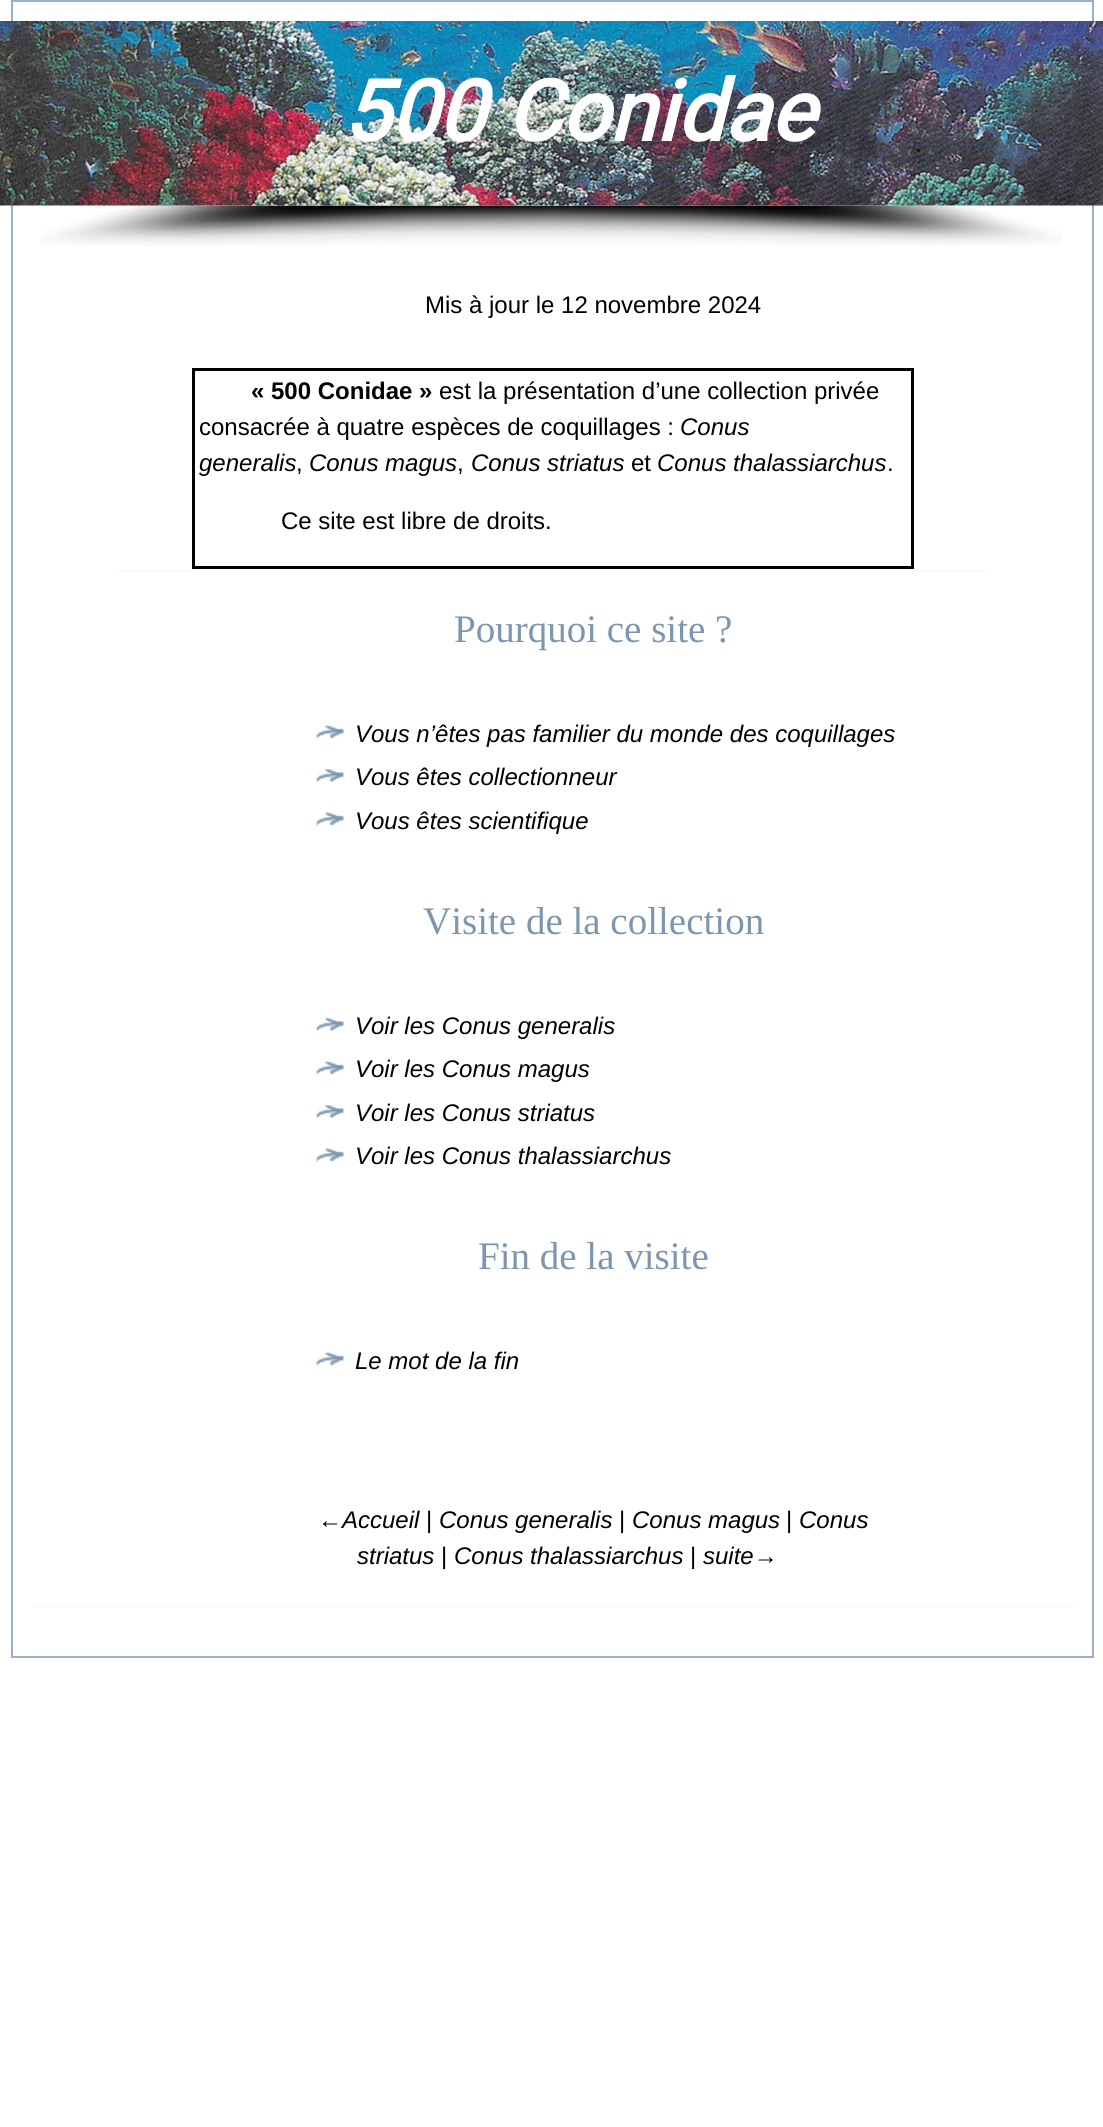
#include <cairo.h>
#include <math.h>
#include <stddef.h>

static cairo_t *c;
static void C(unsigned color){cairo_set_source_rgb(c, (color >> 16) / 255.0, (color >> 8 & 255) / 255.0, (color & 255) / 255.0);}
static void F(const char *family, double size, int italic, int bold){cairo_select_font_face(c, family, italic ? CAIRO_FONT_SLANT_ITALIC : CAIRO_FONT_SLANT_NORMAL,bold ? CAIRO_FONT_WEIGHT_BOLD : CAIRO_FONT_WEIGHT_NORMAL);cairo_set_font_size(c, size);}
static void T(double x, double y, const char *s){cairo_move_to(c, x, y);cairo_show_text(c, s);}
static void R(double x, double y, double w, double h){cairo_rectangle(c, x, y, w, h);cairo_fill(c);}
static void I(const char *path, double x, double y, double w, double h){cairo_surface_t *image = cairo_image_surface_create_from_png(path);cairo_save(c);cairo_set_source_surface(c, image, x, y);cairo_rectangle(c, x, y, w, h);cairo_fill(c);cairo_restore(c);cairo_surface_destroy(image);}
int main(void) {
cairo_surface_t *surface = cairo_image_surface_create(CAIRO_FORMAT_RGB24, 1103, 2127);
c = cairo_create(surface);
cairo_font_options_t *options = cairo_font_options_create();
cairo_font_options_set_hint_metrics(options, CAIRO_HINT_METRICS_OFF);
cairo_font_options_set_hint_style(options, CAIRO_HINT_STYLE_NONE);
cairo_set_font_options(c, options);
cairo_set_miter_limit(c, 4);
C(0xffffff);
cairo_paint(c);
cairo_rectangle(c,12,1,1081,1656);
C(0x9cafc4);
cairo_stroke(c);
I("2.png",41,205,1021,41);
I("1.png",0,21,1103,185);
F("Roboto",84.5,1,1);
C(0xffffff);
T(342,141,"500 Conidae");
F("Liberation Sans",24,0,0);
C(0x000000);
T(425,313,"Mis à jour le 12 novembre 2024");
C(0xf9fafb);
R(32,1605,1041,2);
R(116,570,873,2);
C(0x000000);
R(192,368,722,3);
R(911,368,3,201);
R(192,566,722,3);
R(192,368,3,201);
F("Liberation Sans",24,0,1);
T(251,399,"« 500 Conidae »");
F("Liberation Sans",24,0,0);
T(439,399,"est la présentation d’une collection privée");
T(199,435,"consacrée à quatre espèces de coquillages :");
F("Liberation Sans",24,1,0);
T(680,435,"Conus");
T(199,471,"generalis");
F("Liberation Sans",24,0,0);
T(296,471,",");
F("Liberation Sans",24,1,0);
T(309,471,"Conus magus");
F("Liberation Sans",24,0,0);
T(457,471,",");
F("Liberation Sans",24,1,0);
T(471,471,"Conus striatus");
F("Liberation Sans",24,0,0);
T(631,471,"et");
F("Liberation Sans",24,1,0);
T(657,471,"Conus thalassiarchus");
F("Liberation Sans",24,0,0);
T(887,471,".");
T(281,529,"Ce site est libre de droits.");
F("Liberation Serif",39,0,0);
C(0x7c96b1);
T(454,642,"Pourquoi ce site ?");
I("3.png",316,724,28,15);
F("Liberation Sans",24,1,0);
C(0x000000);
T(355,742,"Vous n’êtes pas familier du monde des coquillages");
I("4.png",316,768,28,14);
T(355,785,"Vous êtes collectionneur");
I("3.png",316,811,28,15);
T(355,829,"Vous êtes scientifique");
F("Liberation Serif",39,0,0);
C(0x7c96b1);
T(423,934,"Visite de la collection");
I("4.png",316,1017,28,14);
F("Liberation Sans",24,1,0);
C(0x000000);
T(355,1034,"Voir les Conus generalis");
I("3.png",316,1060,28,15);
T(355,1077,"Voir les Conus magus");
I("4.png",316,1104,28,14);
T(355,1121,"Voir les Conus striatus");
I("3.png",316,1147,28,15);
T(355,1164,"Voir les Conus thalassiarchus");
F("Liberation Serif",39,0,0);
C(0x7c96b1);
T(478,1269,"Fin de la visite");
I("3.png",316,1351,28,15);
F("Liberation Sans",24,1,0);
C(0x000000);
T(355,1369,"Le mot de la fin");
T(318,1528,"←Accueil");
F("Liberation Sans",24,0,0);
T(426,1528,"|");
F("Liberation Sans",24,1,0);
T(439,1528,"Conus generalis");
F("Liberation Sans",24,0,0);
T(619,1528,"|");
F("Liberation Sans",24,1,0);
T(632,1528,"Conus magus");
F("Liberation Sans",24,0,0);
T(786,1528,"|");
F("Liberation Sans",24,1,0);
T(799,1528,"Conus");
T(357,1564,"striatus");
F("Liberation Sans",24,0,0);
T(441,1564,"|");
F("Liberation Sans",24,1,0);
T(454,1564,"Conus thalassiarchus");
F("Liberation Sans",24,0,0);
T(690,1564,"|");
F("Liberation Sans",24,1,0);
T(703,1564,"suite→");
cairo_surface_write_to_png(surface, "o.png");
cairo_font_options_destroy(options);
cairo_destroy(c);
cairo_surface_destroy(surface);
return 0;
}
